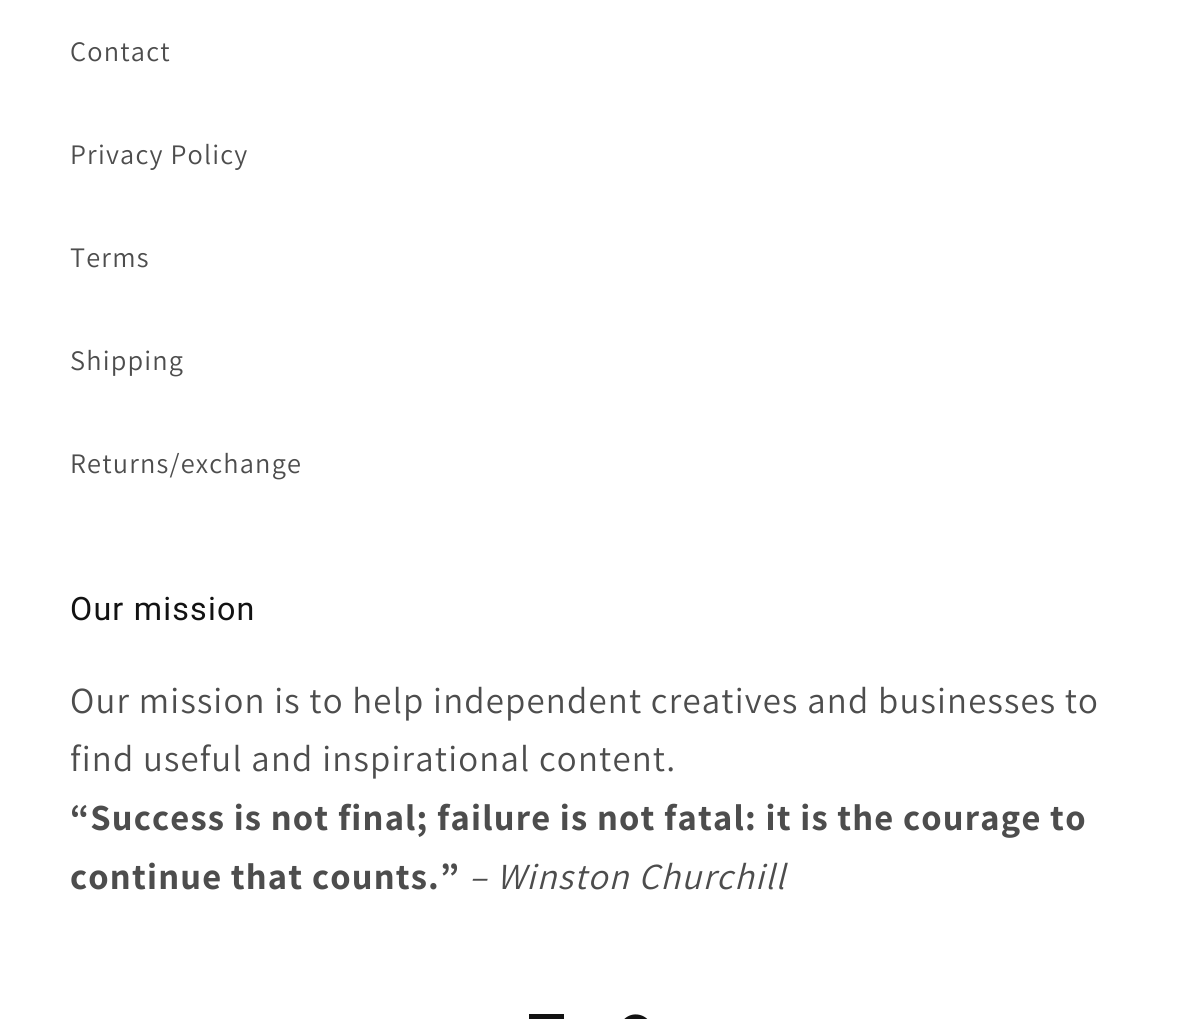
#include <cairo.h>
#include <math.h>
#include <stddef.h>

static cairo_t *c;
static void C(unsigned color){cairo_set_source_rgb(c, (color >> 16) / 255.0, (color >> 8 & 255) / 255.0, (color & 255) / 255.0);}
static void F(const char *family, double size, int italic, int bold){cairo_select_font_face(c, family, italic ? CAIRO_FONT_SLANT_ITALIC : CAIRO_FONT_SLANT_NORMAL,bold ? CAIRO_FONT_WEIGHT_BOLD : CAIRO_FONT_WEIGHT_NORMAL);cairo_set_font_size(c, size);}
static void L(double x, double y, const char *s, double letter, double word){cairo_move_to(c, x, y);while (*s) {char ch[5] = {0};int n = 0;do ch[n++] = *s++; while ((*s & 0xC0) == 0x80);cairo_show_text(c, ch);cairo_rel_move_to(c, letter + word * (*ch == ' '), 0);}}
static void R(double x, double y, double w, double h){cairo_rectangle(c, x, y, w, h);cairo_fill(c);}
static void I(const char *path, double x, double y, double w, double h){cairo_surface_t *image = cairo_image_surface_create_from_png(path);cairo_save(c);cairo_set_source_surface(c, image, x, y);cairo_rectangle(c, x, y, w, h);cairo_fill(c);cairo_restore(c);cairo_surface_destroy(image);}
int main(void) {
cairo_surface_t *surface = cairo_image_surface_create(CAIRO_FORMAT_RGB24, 1183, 1019);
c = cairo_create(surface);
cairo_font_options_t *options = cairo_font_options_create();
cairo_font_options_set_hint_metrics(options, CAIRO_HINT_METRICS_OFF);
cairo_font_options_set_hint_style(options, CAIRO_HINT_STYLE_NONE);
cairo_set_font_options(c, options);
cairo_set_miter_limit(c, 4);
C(0xffffff);
cairo_paint(c);
F("Assistant",28.25,0,0);
C(0x4d4d4d);
L(70,61,"Contact",1.2,0);
L(70,164,"Privacy Policy",1.2,0);
L(70,267,"Terms",1.2,0);
L(70,370,"Shipping",1.2,0);
L(70,473,"Returns/exchange",1.2,0);
F("Roboto",32.25,0,0);
C(0x121212);
L(70,620,"Our mission",1.2,0);
F("Assistant",36.75,0,0);
C(0x4d4d4d);
L(70,713,"Our mission is to help independent creatives and businesses to",1.2,0);
L(70,771,"find useful and inspirational content.",1.2,0);
F("Assistant",36.75,0,1);
L(70,830,"“Success is not final; failure is not fatal: it is the courage to",1.2,0);
L(70,889,"continue that counts.”",1.2,0);
F("Assistant",36.75,1,0);
L(469,889,"– Winston Churchill",1.2,0);
C(0x121212);
R(529,1014,35,5);
I("1.png",624,1014,24,5);
cairo_surface_write_to_png(surface, "o.png");
cairo_font_options_destroy(options);
cairo_destroy(c);
cairo_surface_destroy(surface);
return 0;
}
